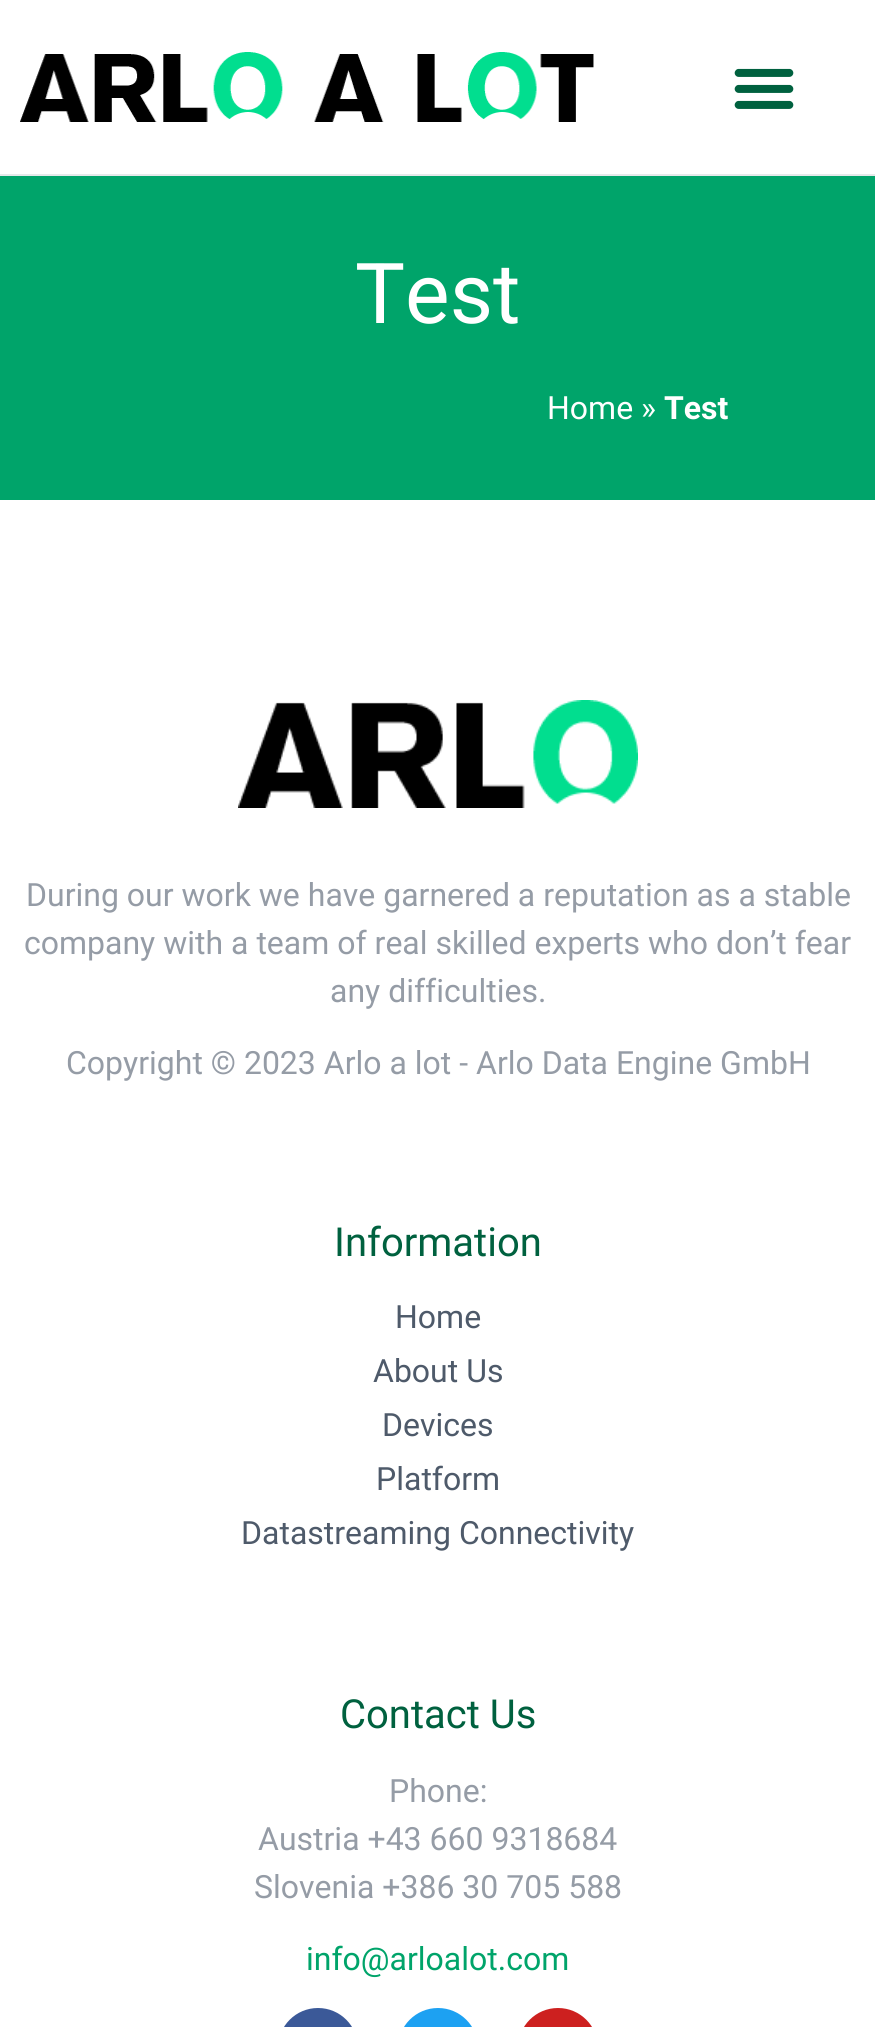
#include <cairo.h>
#include <math.h>
#include <stddef.h>

static cairo_t *c;
static void C(unsigned color){cairo_set_source_rgb(c, (color >> 16) / 255.0, (color >> 8 & 255) / 255.0, (color & 255) / 255.0);}
static void F(const char *family, double size, int italic, int bold){cairo_select_font_face(c, family, italic ? CAIRO_FONT_SLANT_ITALIC : CAIRO_FONT_SLANT_NORMAL,bold ? CAIRO_FONT_WEIGHT_BOLD : CAIRO_FONT_WEIGHT_NORMAL);cairo_set_font_size(c, size);}
static void T(double x, double y, const char *s){cairo_move_to(c, x, y);cairo_show_text(c, s);}
static void R(double x, double y, double w, double h){cairo_rectangle(c, x, y, w, h);cairo_fill(c);}
static void Q(double x, double y, double w, double h, double r){cairo_new_sub_path(c);cairo_arc(c, x + w - r, y + h - r, r, 0, M_PI / 2);cairo_arc(c, x + r, y + h - r, r, M_PI / 2, M_PI);cairo_arc(c, x + r, y + r, r, M_PI, 1.5 * M_PI);cairo_arc(c, x + w - r, y + r, r, 1.5 * M_PI, 2 * M_PI);cairo_close_path(c);}
static void I(const char *path, double x, double y, double w, double h){cairo_surface_t *image = cairo_image_surface_create_from_png(path);cairo_save(c);cairo_set_source_surface(c, image, x, y);cairo_rectangle(c, x, y, w, h);cairo_fill(c);cairo_restore(c);cairo_surface_destroy(image);}
int main(void) {
cairo_surface_t *surface = cairo_image_surface_create(CAIRO_FORMAT_RGB24, 875, 2027);
c = cairo_create(surface);
cairo_font_options_t *options = cairo_font_options_create();
cairo_font_options_set_hint_metrics(options, CAIRO_HINT_METRICS_OFF);
cairo_font_options_set_hint_style(options, CAIRO_HINT_STYLE_NONE);
cairo_set_font_options(c, options);
cairo_set_miter_limit(c, 4);
C(0xffffff);
cairo_paint(c);
C(0xe5e9ea);
R(0,174,875,2);
I("1.png",20,52,574,70);
I("2.png",734,68,60,41);
C(0x00a46a);
R(0,176,875,324);
F("Roboto",84,0,0);
C(0xffffff);
T(355,323,"Test");
F("Roboto",32,0,0);
T(547,419,"Home »");
F("Roboto",32,0,1);
T(664,419,"Test");
I("3.png",238,700,400,108);
F("Roboto",32,0,0);
C(0x959ca6);
T(26,906,"During our work we have garnered a reputation as a stable");
T(24,954,"company with a team of real skilled experts who don’t fear");
T(330,1002,"any difficulties.");
T(66,1074,"Copyright © 2023 Arlo a lot - Arlo Data Engine GmbH");
F("Roboto",40,0,0);
C(0x00613f);
T(334,1256,"Information");
F("Roboto",32,0,0);
C(0x4e5a6a);
T(395,1328,"Home");
T(373,1382,"About Us");
T(382,1436,"Devices");
T(376,1490,"Platform");
T(241,1544,"Datastreaming Connectivity");
F("Roboto",40,0,0);
C(0x00613f);
T(340,1728,"Contact Us");
F("Roboto",32,0,0);
C(0x959ca6);
T(389,1802,"Phone:");
T(258,1850,"Austria +43 660 9318684");
T(254,1898,"Slovenia +386 30 705 588");
C(0x00a46a);
T(306,1970,"info@arloalot.com");
C(0x3b5998);
Q(278,2008,80,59,40);
cairo_fill(c);
C(0x1da1f2);
Q(398,2008,80,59,40);
cairo_fill(c);
C(0xcd201f);
Q(518,2008,80,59,40);
cairo_fill(c);
cairo_surface_write_to_png(surface, "o.png");
cairo_font_options_destroy(options);
cairo_destroy(c);
cairo_surface_destroy(surface);
return 0;
}
